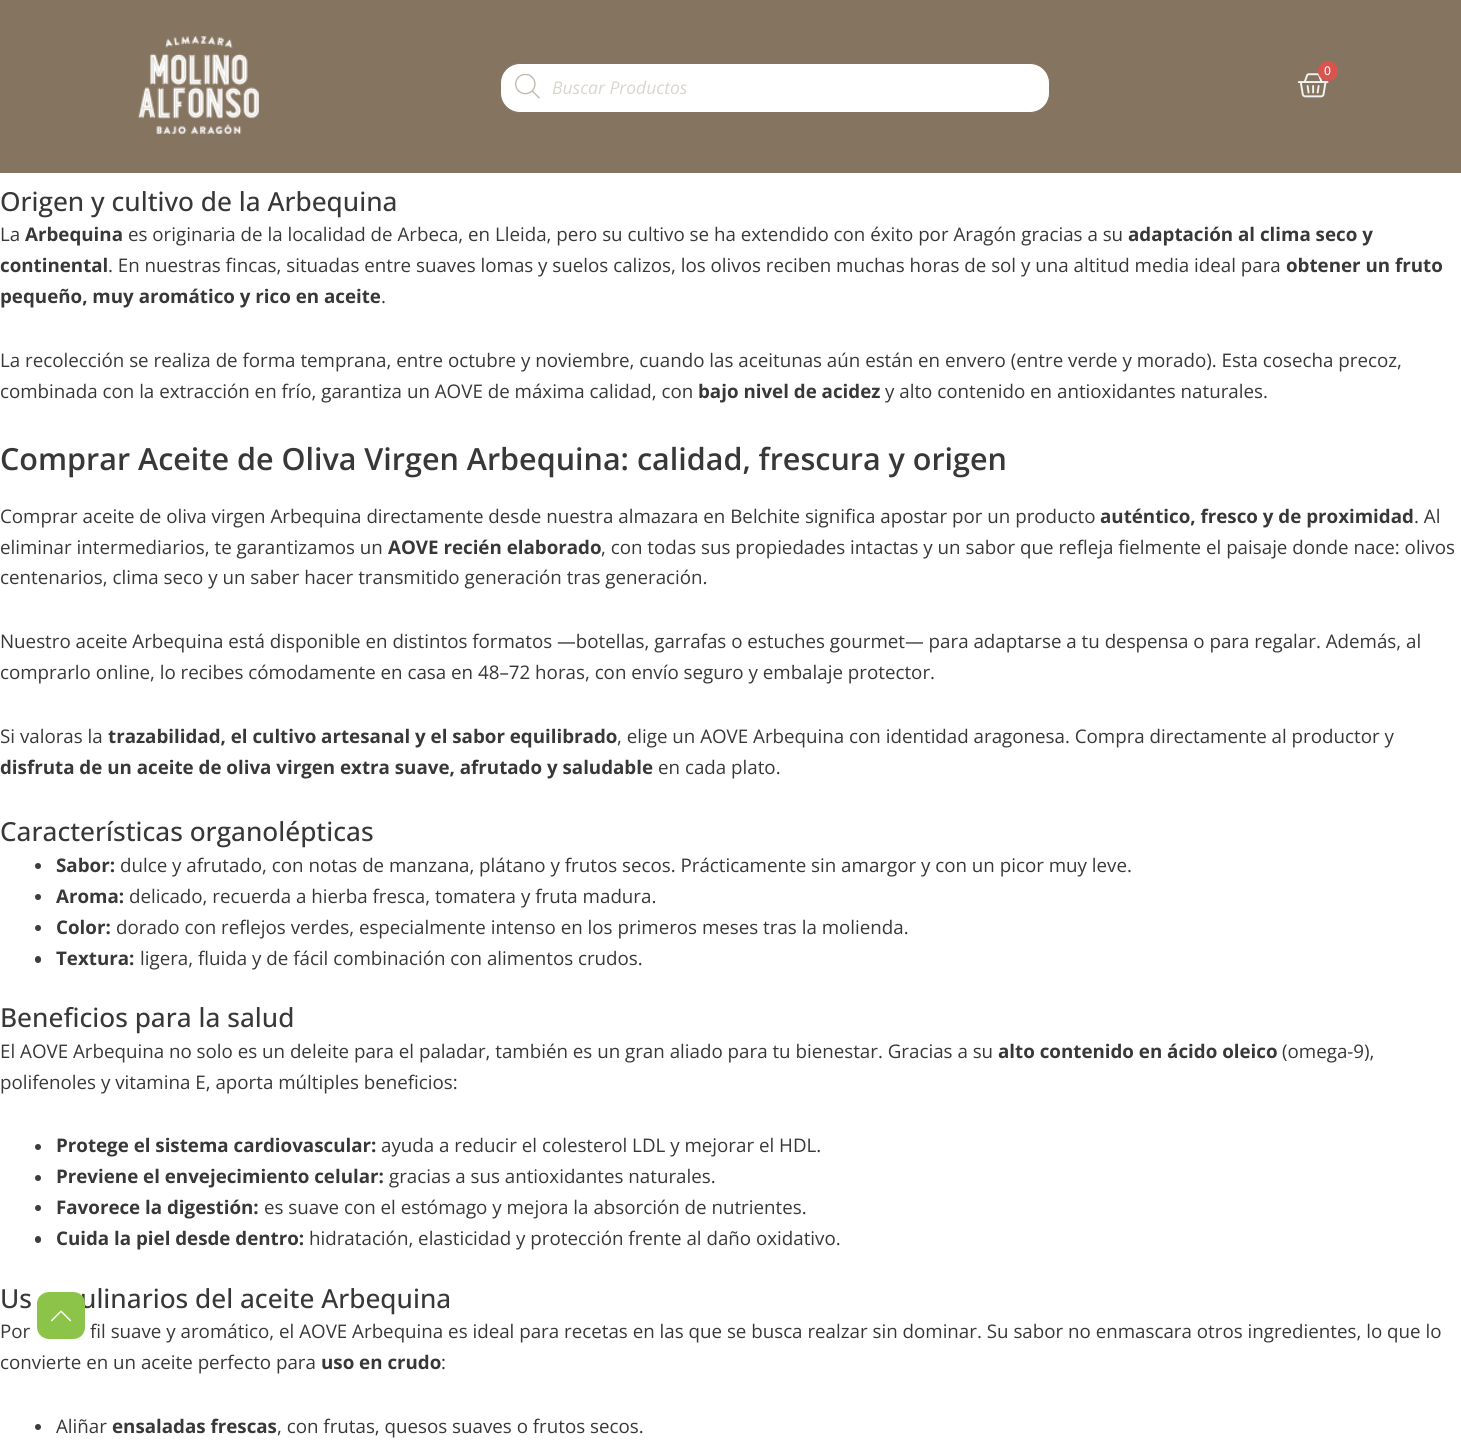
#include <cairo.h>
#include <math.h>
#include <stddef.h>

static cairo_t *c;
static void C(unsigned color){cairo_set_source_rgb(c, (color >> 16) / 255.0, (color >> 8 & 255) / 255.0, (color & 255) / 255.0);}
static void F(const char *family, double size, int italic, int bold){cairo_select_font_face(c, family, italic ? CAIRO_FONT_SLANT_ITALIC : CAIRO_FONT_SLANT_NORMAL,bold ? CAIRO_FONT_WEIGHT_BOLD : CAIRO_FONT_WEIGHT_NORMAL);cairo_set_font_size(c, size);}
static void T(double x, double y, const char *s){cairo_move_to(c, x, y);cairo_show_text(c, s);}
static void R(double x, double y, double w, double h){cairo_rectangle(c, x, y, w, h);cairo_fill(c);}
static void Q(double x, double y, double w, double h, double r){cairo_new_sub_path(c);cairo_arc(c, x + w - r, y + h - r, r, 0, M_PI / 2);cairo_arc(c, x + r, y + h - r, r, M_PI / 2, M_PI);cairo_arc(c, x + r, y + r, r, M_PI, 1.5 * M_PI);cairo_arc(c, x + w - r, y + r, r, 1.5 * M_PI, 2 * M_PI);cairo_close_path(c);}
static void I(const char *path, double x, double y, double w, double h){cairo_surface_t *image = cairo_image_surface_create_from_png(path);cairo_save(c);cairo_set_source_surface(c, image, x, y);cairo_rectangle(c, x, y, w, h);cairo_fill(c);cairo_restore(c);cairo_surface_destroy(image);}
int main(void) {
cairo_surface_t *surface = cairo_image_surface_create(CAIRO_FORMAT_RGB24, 1461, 1444);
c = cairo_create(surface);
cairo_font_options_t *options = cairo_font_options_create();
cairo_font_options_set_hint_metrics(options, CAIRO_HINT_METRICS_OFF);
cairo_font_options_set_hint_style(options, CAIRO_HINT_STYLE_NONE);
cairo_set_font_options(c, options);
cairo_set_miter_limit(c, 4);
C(0xffffff);
cairo_paint(c);
C(0x857460);
R(0,0,1461,173);
I("1.png",138,36,121,98);
I("2.png",1297,73,32,25);
C(0xd9534f);
cairo_arc(c,1328,71,10,0,2 * M_PI);
cairo_fill(c);
F("Open Sans Medium",12,0,0);
C(0xffffff);
T(1324,75,"0");
Q(500.5,63.5,549,49,19.5);
cairo_fill_preserve(c);
C(0x857460);
cairo_set_line_width(c,1);
cairo_stroke(c);
I("3.png",515,74,25,25);
F("Open Sans",17.5,1,0);
C(0xdad5cf);
T(552,94,"Buscar Productos");
F("Open Sans Medium",26.25,0,0);
C(0x383838);
T(0,211,"Origen y cultivo de la Arbequina");
F("Open Sans",18.75,0,0);
T(0,241,"La");
F("Open Sans",18.75,0,1);
T(25,241,"Arbequina");
F("Open Sans",18.75,0,0);
T(128,241,"es originaria de la localidad de Arbeca, en Lleida, pero su cultivo se ha extendido con éxito por Aragón gracias a su");
F("Open Sans",18.75,0,1);
T(1128,241,"adaptación al clima seco y");
T(0,272,"continental");
F("Open Sans",18.75,0,0);
T(108,272,". En nuestras fincas, situadas entre suaves lomas y suelos calizos, los olivos reciben muchas horas de sol y una altitud media ideal para");
F("Open Sans",18.75,0,1);
T(1286,272,"obtener un fruto");
T(0,303,"pequeño, muy aromático y rico en aceite");
F("Open Sans",18.75,0,0);
T(381,303,".");
T(0,367,"La recolección se realiza de forma temprana, entre octubre y noviembre, cuando las aceitunas aún están en envero (entre verde y morado). Esta cosecha precoz,");
T(0,398,"combinada con la extracción en frío, garantiza un AOVE de máxima calidad, con");
F("Open Sans",18.75,0,1);
T(698,398,"bajo nivel de acidez");
F("Open Sans",18.75,0,0);
T(885,398,"y alto contenido en antioxidantes naturales.");
F("Open Sans SemiBold",30.5,0,0);
T(0,470,"Comprar Aceite de Oliva Virgen Arbequina: calidad, frescura y origen");
F("Open Sans",18.75,0,0);
T(0,523,"Comprar aceite de oliva virgen Arbequina directamente desde nuestra almazara en Belchite significa apostar por un producto");
F("Open Sans",18.75,0,1);
T(1100,523,"auténtico, fresco y de proximidad");
F("Open Sans",18.75,0,0);
T(1414,523,". Al");
T(0,554,"eliminar intermediarios, te garantizamos un");
F("Open Sans",18.75,0,1);
T(388,554,"AOVE recién elaborado");
F("Open Sans",18.75,0,0);
T(601,554,", con todas sus propiedades intactas y un sabor que refleja fielmente el paisaje donde nace: olivos");
T(0,584,"centenarios, clima seco y un saber hacer transmitido generación tras generación.");
T(0,648,"Nuestro aceite Arbequina está disponible en distintos formatos —botellas, garrafas o estuches gourmet— para adaptarse a tu despensa o para regalar. Además, al");
T(0,679,"comprarlo online, lo recibes cómodamente en casa en 48–72 horas, con envío seguro y embalaje protector.");
T(0,743,"Si valoras la");
F("Open Sans",18.75,0,1);
T(108,743,"trazabilidad, el cultivo artesanal y el sabor equilibrado");
F("Open Sans",18.75,0,0);
T(617,743,", elige un AOVE Arbequina con identidad aragonesa. Compra directamente al productor y");
F("Open Sans",18.75,0,1);
T(0,774,"disfruta de un aceite de oliva virgen extra suave, afrutado y saludable");
F("Open Sans",18.75,0,0);
T(658,774,"en cada plato.");
F("Open Sans Medium",26.25,0,0);
T(0,841,"Características organolépticas");
C(0x3c3c3c);
cairo_new_path(c);
cairo_arc(c,38,866,3,0,2 * M_PI);
cairo_fill(c);
F("Open Sans",18.75,0,1);
C(0x383838);
T(56,872,"Sabor:");
F("Open Sans",18.75,0,0);
T(120,872,"dulce y afrutado, con notas de manzana, plátano y frutos secos. Prácticamente sin amargor y con un picor muy leve.");
C(0x3c3c3c);
cairo_new_path(c);
cairo_arc(c,38,897,3,0,2 * M_PI);
cairo_fill(c);
F("Open Sans",18.75,0,1);
C(0x383838);
T(56,903,"Aroma:");
F("Open Sans",18.75,0,0);
T(129,903,"delicado, recuerda a hierba fresca, tomatera y fruta madura.");
C(0x3c3c3c);
cairo_new_path(c);
cairo_arc(c,38,928,3,0,2 * M_PI);
cairo_fill(c);
F("Open Sans",18.75,0,1);
C(0x383838);
T(56,934,"Color:");
F("Open Sans",18.75,0,0);
T(116,934,"dorado con reflejos verdes, especialmente intenso en los primeros meses tras la molienda.");
C(0x3c3c3c);
Q(35,956,6,7,3);
cairo_fill(c);
F("Open Sans",18.75,0,1);
C(0x383838);
T(56,965,"Textura:");
F("Open Sans",18.75,0,0);
T(140,965,"ligera, fluida y de fácil combinación con alimentos crudos.");
F("Open Sans Medium",26.25,0,0);
T(0,1027,"Beneficios para la salud");
F("Open Sans",18.75,0,0);
T(0,1058,"El AOVE Arbequina no solo es un deleite para el paladar, también es un gran aliado para tu bienestar. Gracias a su");
F("Open Sans",18.75,0,1);
T(998,1058,"alto contenido en ácido oleico");
F("Open Sans",18.75,0,0);
T(1282,1058,"(omega-9),");
T(0,1089,"polifenoles y vitamina E, aporta múltiples beneficios:");
C(0x3c3c3c);
cairo_new_path(c);
cairo_arc(c,38,1147,3,0,2 * M_PI);
cairo_fill(c);
F("Open Sans",18.75,0,1);
C(0x383838);
T(56,1152,"Protege el sistema cardiovascular:");
F("Open Sans",18.75,0,0);
T(381,1152,"ayuda a reducir el colesterol LDL y mejorar el HDL.");
C(0x3c3c3c);
cairo_new_path(c);
cairo_arc(c,38,1178,3,0,2 * M_PI);
cairo_fill(c);
F("Open Sans",18.75,0,1);
C(0x383838);
T(56,1183,"Previene el envejecimiento celular:");
F("Open Sans",18.75,0,0);
T(389,1183,"gracias a sus antioxidantes naturales.");
C(0x3c3c3c);
cairo_new_path(c);
cairo_arc(c,38,1208,3,0,2 * M_PI);
cairo_fill(c);
F("Open Sans",18.75,0,1);
C(0x383838);
T(56,1214,"Favorece la digestión:");
F("Open Sans",18.75,0,0);
T(264,1214,"es suave con el estómago y mejora la absorción de nutrientes.");
C(0x3c3c3c);
Q(35,1236,6,7,3);
cairo_fill(c);
F("Open Sans",18.75,0,1);
C(0x383838);
T(56,1245,"Cuida la piel desde dentro:");
F("Open Sans",18.75,0,0);
T(309,1245,"hidratación, elasticidad y protección frente al daño oxidativo.");
F("Open Sans Medium",26.25,0,0);
T(0,1308,"Us");
T(80,1308,"ulinarios del aceite Arbequina");
F("Open Sans",18.75,0,0);
T(0,1338,"Por");
T(90,1338,"fil suave y aromático, el AOVE Arbequina es ideal para recetas en las que se busca realzar sin dominar. Su sabor no enmascara otros ingredientes, lo que lo");
T(0,1369,"convierte en un aceite perfecto para");
F("Open Sans",18.75,0,1);
T(321,1369,"uso en crudo");
F("Open Sans",18.75,0,0);
T(441,1369,":");
C(0x3c3c3c);
cairo_new_path(c);
cairo_arc(c,38,1427,3,0,2 * M_PI);
cairo_fill(c);
C(0x383838);
T(56,1433,"Aliñar");
F("Open Sans",18.75,0,1);
T(112,1433,"ensaladas frescas");
F("Open Sans",18.75,0,0);
T(277,1433,", con frutas, quesos suaves o frutos secos.");
C(0x8cc44a);
cairo_new_path(c);
cairo_move_to(c,73,1339);
cairo_line_to(c,49,1339);
cairo_curve_to(c,43,1339,37,1334,37,1327);
cairo_line_to(c,37,1303);
cairo_curve_to(c,37,1297,43,1292,49,1292);
cairo_line_to(c,73,1292);
cairo_curve_to(c,80,1292,85,1297,85,1303);
cairo_line_to(c,85,1327);
cairo_curve_to(c,85,1334,80,1339,73,1339);
cairo_close_path(c);
cairo_fill(c);
I("4.png",50,1310,22,12);
cairo_surface_write_to_png(surface, "o.png");
cairo_font_options_destroy(options);
cairo_destroy(c);
cairo_surface_destroy(surface);
return 0;
}
